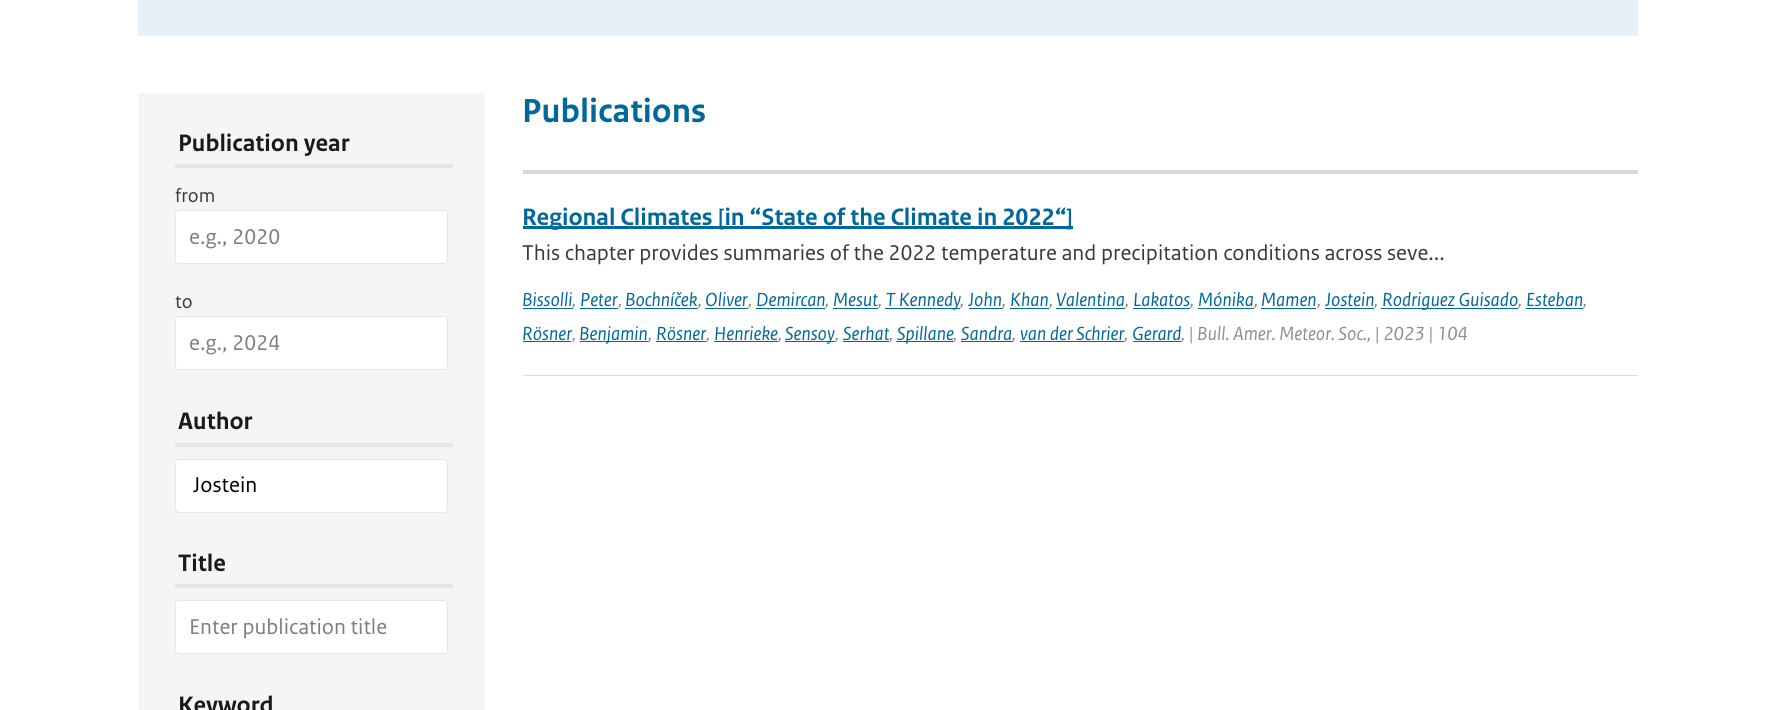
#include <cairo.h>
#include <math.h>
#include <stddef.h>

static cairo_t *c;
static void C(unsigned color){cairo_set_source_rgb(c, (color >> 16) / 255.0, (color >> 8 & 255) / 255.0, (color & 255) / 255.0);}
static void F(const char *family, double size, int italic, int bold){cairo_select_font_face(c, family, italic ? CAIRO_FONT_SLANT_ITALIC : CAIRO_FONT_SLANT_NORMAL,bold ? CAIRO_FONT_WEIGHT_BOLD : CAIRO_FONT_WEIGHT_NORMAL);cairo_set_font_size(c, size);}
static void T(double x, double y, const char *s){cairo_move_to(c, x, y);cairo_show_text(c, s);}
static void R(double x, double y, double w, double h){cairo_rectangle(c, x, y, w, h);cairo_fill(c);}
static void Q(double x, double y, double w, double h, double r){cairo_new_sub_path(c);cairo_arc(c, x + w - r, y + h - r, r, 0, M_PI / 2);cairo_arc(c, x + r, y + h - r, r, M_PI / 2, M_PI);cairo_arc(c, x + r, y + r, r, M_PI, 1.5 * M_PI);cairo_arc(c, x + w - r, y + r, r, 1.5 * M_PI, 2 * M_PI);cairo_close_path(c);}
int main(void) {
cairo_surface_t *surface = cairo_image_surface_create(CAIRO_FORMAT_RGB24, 1775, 710);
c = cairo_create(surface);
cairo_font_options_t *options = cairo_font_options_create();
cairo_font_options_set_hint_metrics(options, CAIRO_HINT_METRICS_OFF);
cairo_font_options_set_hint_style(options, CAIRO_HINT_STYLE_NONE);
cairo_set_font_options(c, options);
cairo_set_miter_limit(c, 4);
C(0xffffff);
cairo_paint(c);
C(0xe5f0f9);
R(138,0,1500,36);
C(0xf5f5f5);
R(138,93,347,617);
C(0xe6e6e6);
R(175,164,278,4);
F("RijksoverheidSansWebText",25,0,1);
C(0x1a1a1a);
T(178,151,"Publication year");
F("RijksoverheidSansWebText",20,0,0);
C(0x3a3a3a);
T(175,202,"from");
C(0xffffff);
Q(175.5,210.5,272,53,3.5);
cairo_fill_preserve(c);
C(0xe6e6e6);
cairo_set_line_width(c,1);
cairo_stroke(c);
F("RijksoverheidSansWebText",22.5,0,0);
C(0x7e7e7e);
T(189,244,"e.g., 2020");
F("RijksoverheidSansWebText",20,0,0);
C(0x3a3a3a);
T(175,308,"to");
C(0xffffff);
Q(175.5,316.5,272,53,3.5);
cairo_fill_preserve(c);
C(0xe6e6e6);
cairo_stroke(c);
F("RijksoverheidSansWebText",22.5,0,0);
C(0x7e7e7e);
T(189,350,"e.g., 2024");
C(0xe6e6e6);
R(175,443,278,4);
F("RijksoverheidSansWebText",25,0,1);
C(0x1a1a1a);
T(178,429,"Author");
C(0xffffff);
Q(175.5,459.5,272,53,3.5);
cairo_fill_preserve(c);
C(0xe6e6e6);
cairo_stroke(c);
F("RijksoverheidSansWebText",22.5,0,0);
C(0x000000);
T(193,492,"Jostein");
C(0xe6e6e6);
R(175,584,278,4);
F("RijksoverheidSansWebText",25,0,1);
C(0x1a1a1a);
T(178,571,"Title");
C(0xffffff);
Q(175.5,600.5,272,53,3.5);
cairo_fill_preserve(c);
C(0xe6e6e6);
cairo_stroke(c);
F("RijksoverheidSansWebText",22.5,0,0);
C(0x7e7e7e);
T(189,634,"Enter publication title");
F("RijksoverheidSansWebText",25,0,1);
C(0x1a1a1a);
T(178,713,"Keyword");
F("RijksoverheidSansWebText",35,0,1);
C(0x01689b);
T(522,122,"Publications");
C(0xd8d8d8);
R(523,170,1115,4);
C(0xdedede);
R(523,375,1115,1);
C(0x01689b);
R(523,226,550,3);
F("RijksoverheidSansWebText",25,0,1);
T(522,225,"Regional Climates [in “State of the Climate in 2022“]");
F("RijksoverheidSansWebText",22.5,0,0);
C(0x3a3a3a);
T(522,260,"This chapter provides summaries of the 2022 temperature and precipitation conditions across seve...");
F("RijksoverheidSansWebText",20,1,0);
C(0x01689b);
T(522,306,"Bissolli");
R(523,308,50,1);
C(0x8e8e8e);
T(572,306,",");
C(0x01689b);
T(580,306,"Peter");
R(580,308,38,1);
C(0x8e8e8e);
T(618,306,",");
C(0x01689b);
T(625,306,"Bochníček");
R(625,308,73,1);
C(0x8e8e8e);
T(698,306,",");
C(0x01689b);
T(705,306,"Oliver");
T(756,306,"Demircan");
T(833,306,"Mesut");
R(885,308,75,1);
T(886,306,"T Kennedy");
T(968,306,"John");
T(1010,306,"Khan");
T(1056,306,"Valentina");
T(1133,306,"Lakatos");
T(1198,306,"Mónika");
T(1261,306,"Mamen");
T(1325,306,"Jostein");
R(1381,308,137,1);
T(1382,306,"Rodriguez Guisado");
T(1526,306,"Esteban");
R(705,308,43,1);
C(0x8e8e8e);
T(748,306,",");
T(825,306,",");
C(0x01689b);
R(756,308,69,1);
R(833,308,45,1);
C(0x8e8e8e);
T(878,306,",");
T(960,306,",");
C(0x01689b);
R(969,308,34,1);
C(0x8e8e8e);
T(1002,306,",");
C(0x01689b);
R(1010,308,39,1);
C(0x8e8e8e);
T(1049,306,",");
T(1125,306,",");
C(0x01689b);
R(1056,308,69,1);
C(0x8e8e8e);
T(1190,306,",");
C(0x01689b);
R(1133,308,57,1);
R(1198,308,56,1);
C(0x8e8e8e);
T(1254,306,",");
T(1317,306,",");
C(0x01689b);
R(1261,308,55,1);
C(0x8e8e8e);
T(1374,306,",");
C(0x01689b);
R(1325,308,49,1);
C(0x8e8e8e);
T(1518,306,",");
C(0x01689b);
R(1526,308,57,1);
C(0x8e8e8e);
T(1583,306,",");
C(0x01689b);
T(522,340,"Rösner");
R(580,341,69,1);
T(579,340,"Benjamin");
T(656,340,"Rösner");
T(714,340,"Henrieke");
R(785,341,50,1);
T(785,340,"Sensoy");
T(843,340,"Serhat");
R(896,341,58,1);
T(897,340,"Spillane");
T(961,340,"Sandra");
T(1020,340,"van der Schrier");
T(1132,340,"Gerard");
C(0x8e8e8e);
T(1181,340,", | Bull. Amer. Meteor. Soc., | 2023 | 104");
T(572,340,",");
C(0x01689b);
R(523,341,48,1);
C(0x8e8e8e);
T(648,340,",");
C(0x01689b);
R(656,341,50,1);
C(0x8e8e8e);
T(706,340,",");
C(0x01689b);
R(714,341,64,1);
C(0x8e8e8e);
T(778,340,",");
T(835,340,",");
C(0x01689b);
R(843,341,46,1);
C(0x8e8e8e);
T(889,340,",");
T(953,340,",");
C(0x01689b);
R(961,341,52,1);
C(0x8e8e8e);
T(1012,340,",");
T(1124,340,",");
C(0x01689b);
R(1020,341,104,1);
R(1133,341,48,1);
cairo_surface_write_to_png(surface, "o.png");
cairo_font_options_destroy(options);
cairo_destroy(c);
cairo_surface_destroy(surface);
return 0;
}
